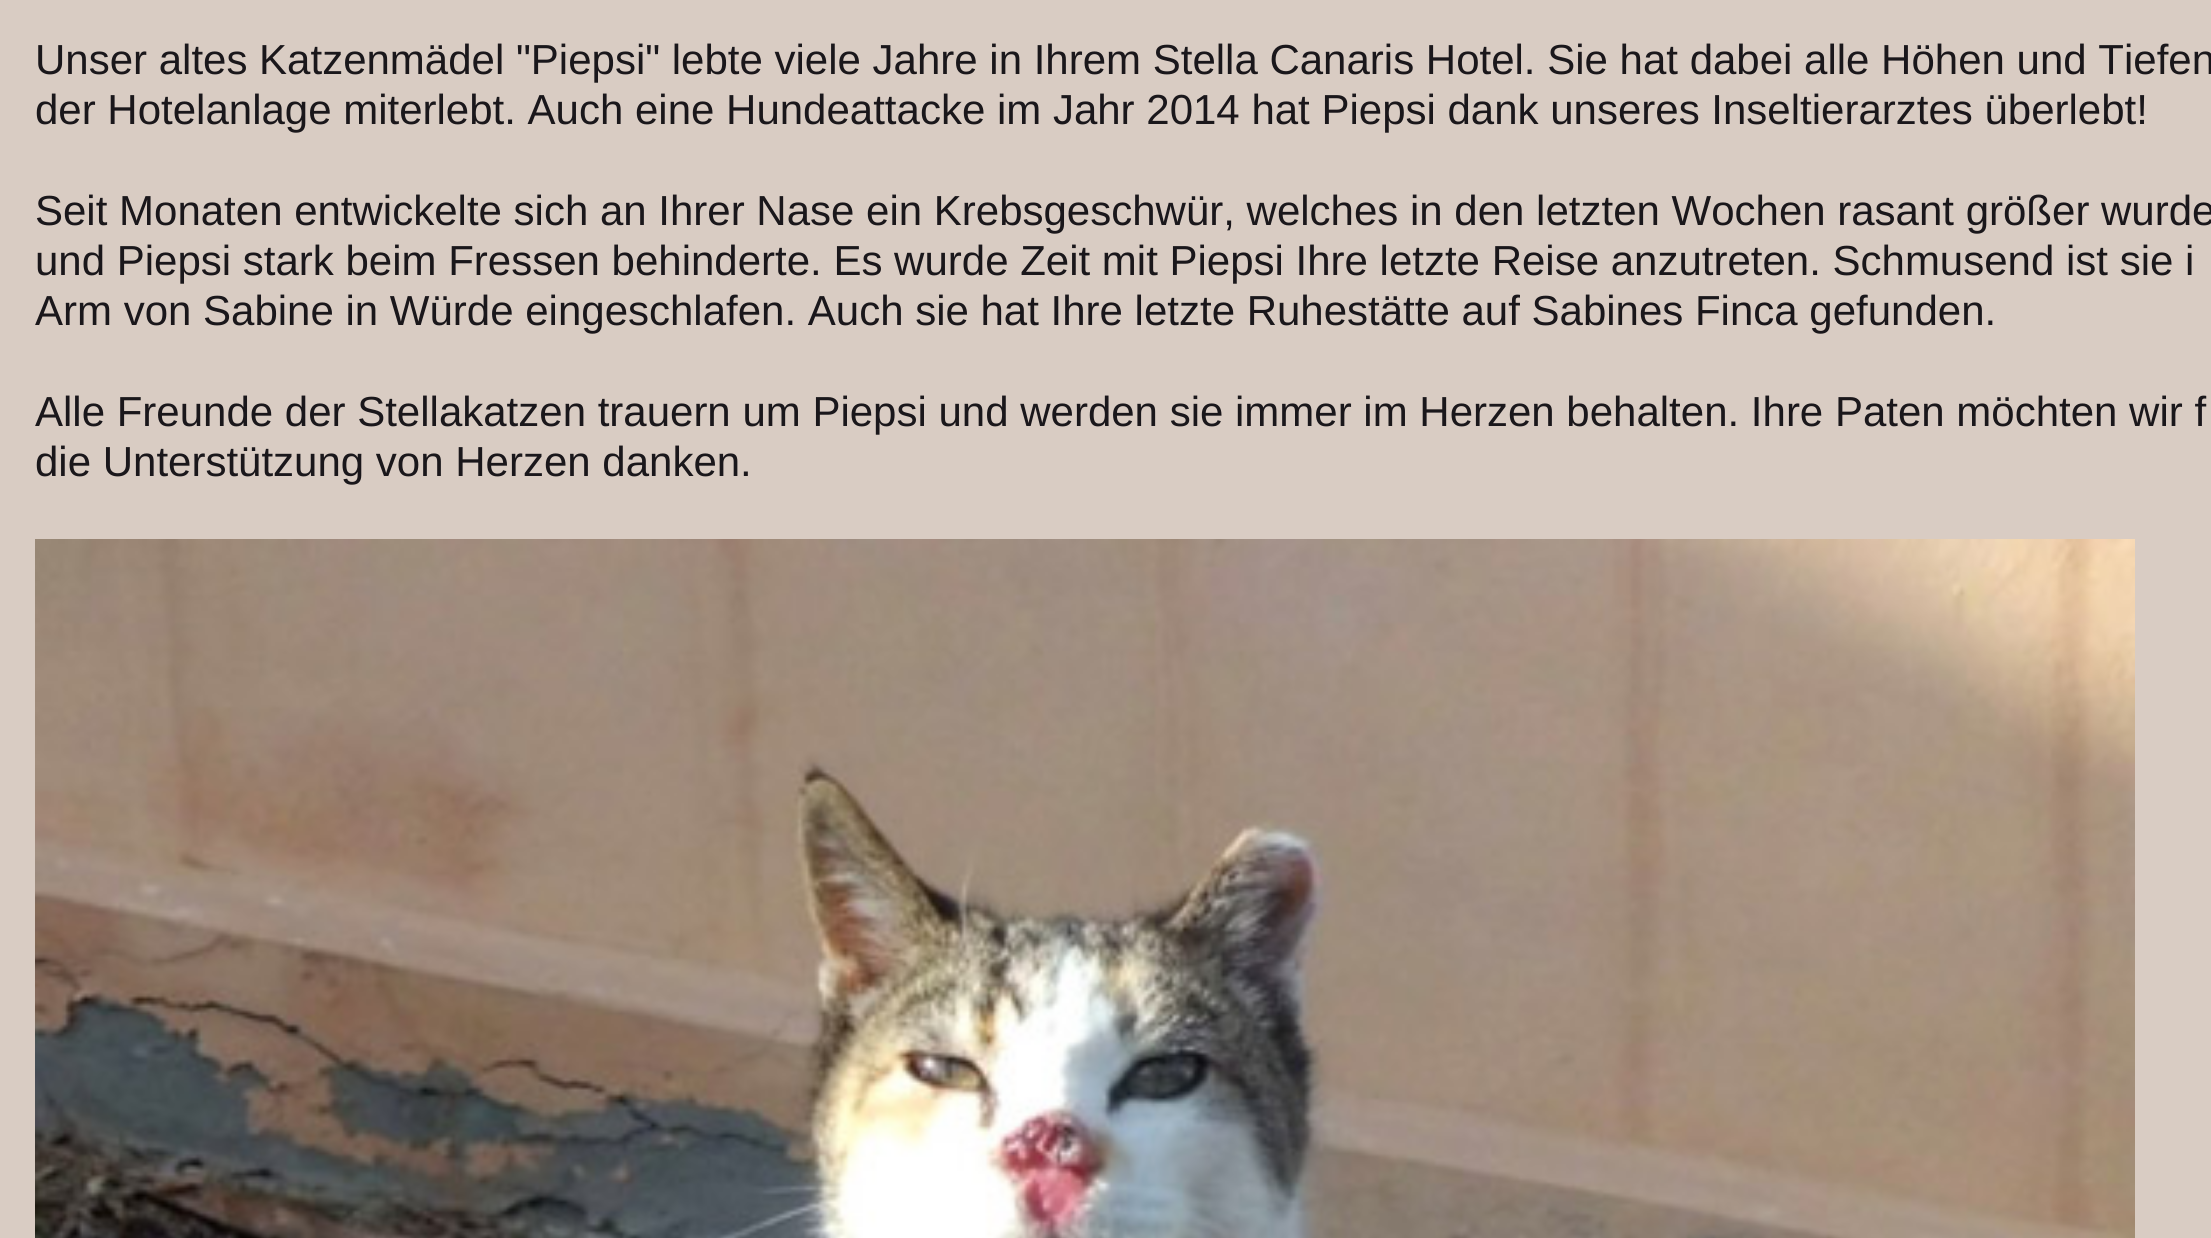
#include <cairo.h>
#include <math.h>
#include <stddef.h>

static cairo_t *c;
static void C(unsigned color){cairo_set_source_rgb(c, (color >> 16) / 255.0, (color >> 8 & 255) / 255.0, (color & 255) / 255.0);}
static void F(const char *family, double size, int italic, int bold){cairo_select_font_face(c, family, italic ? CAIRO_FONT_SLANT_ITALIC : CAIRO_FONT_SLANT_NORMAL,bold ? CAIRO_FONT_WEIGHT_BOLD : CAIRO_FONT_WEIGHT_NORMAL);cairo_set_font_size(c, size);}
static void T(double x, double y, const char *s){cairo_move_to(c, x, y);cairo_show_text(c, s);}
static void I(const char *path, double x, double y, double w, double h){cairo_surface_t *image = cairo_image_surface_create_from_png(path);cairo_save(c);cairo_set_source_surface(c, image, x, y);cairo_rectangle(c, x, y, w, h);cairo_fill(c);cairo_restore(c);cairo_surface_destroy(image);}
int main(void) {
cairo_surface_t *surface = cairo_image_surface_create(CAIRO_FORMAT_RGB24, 2211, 1238);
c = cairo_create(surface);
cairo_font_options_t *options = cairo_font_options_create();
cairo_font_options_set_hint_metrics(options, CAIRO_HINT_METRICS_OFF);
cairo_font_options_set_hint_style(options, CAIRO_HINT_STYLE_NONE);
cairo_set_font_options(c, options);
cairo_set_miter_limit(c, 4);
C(0xd9ccc3);
cairo_paint(c);
F("Liberation Sans",42,0,0);
C(0x1a171b);
T(35,74,"Unser altes Katzenmädel \"Piepsi\" lebte viele Jahre in Ihrem Stella Canaris Hotel. Sie hat dabei alle Höhen und Tiefen");
T(35,124,"der Hotelanlage miterlebt. Auch eine Hundeattacke im Jahr 2014 hat Piepsi dank unseres Inseltierarztes überlebt!");
T(35,225,"Seit Monaten entwickelte sich an Ihrer Nase ein Krebsgeschwür, welches in den letzten Wochen rasant größer wurde");
T(35,275,"und Piepsi stark beim Fressen behinderte. Es wurde Zeit mit Piepsi Ihre letzte Reise anzutreten. Schmusend ist sie i");
T(35,325,"Arm von Sabine in Würde eingeschlafen. Auch sie hat Ihre letzte Ruhestätte auf Sabines Finca gefunden.");
T(35,426,"Alle Freunde der Stellakatzen trauern um Piepsi und werden sie immer im Herzen behalten. Ihre Paten möchten wir f");
T(35,476,"die Unterstützung von Herzen danken.");
I("1.png",35,539,2100,699);
cairo_surface_write_to_png(surface, "o.png");
cairo_font_options_destroy(options);
cairo_destroy(c);
cairo_surface_destroy(surface);
return 0;
}
